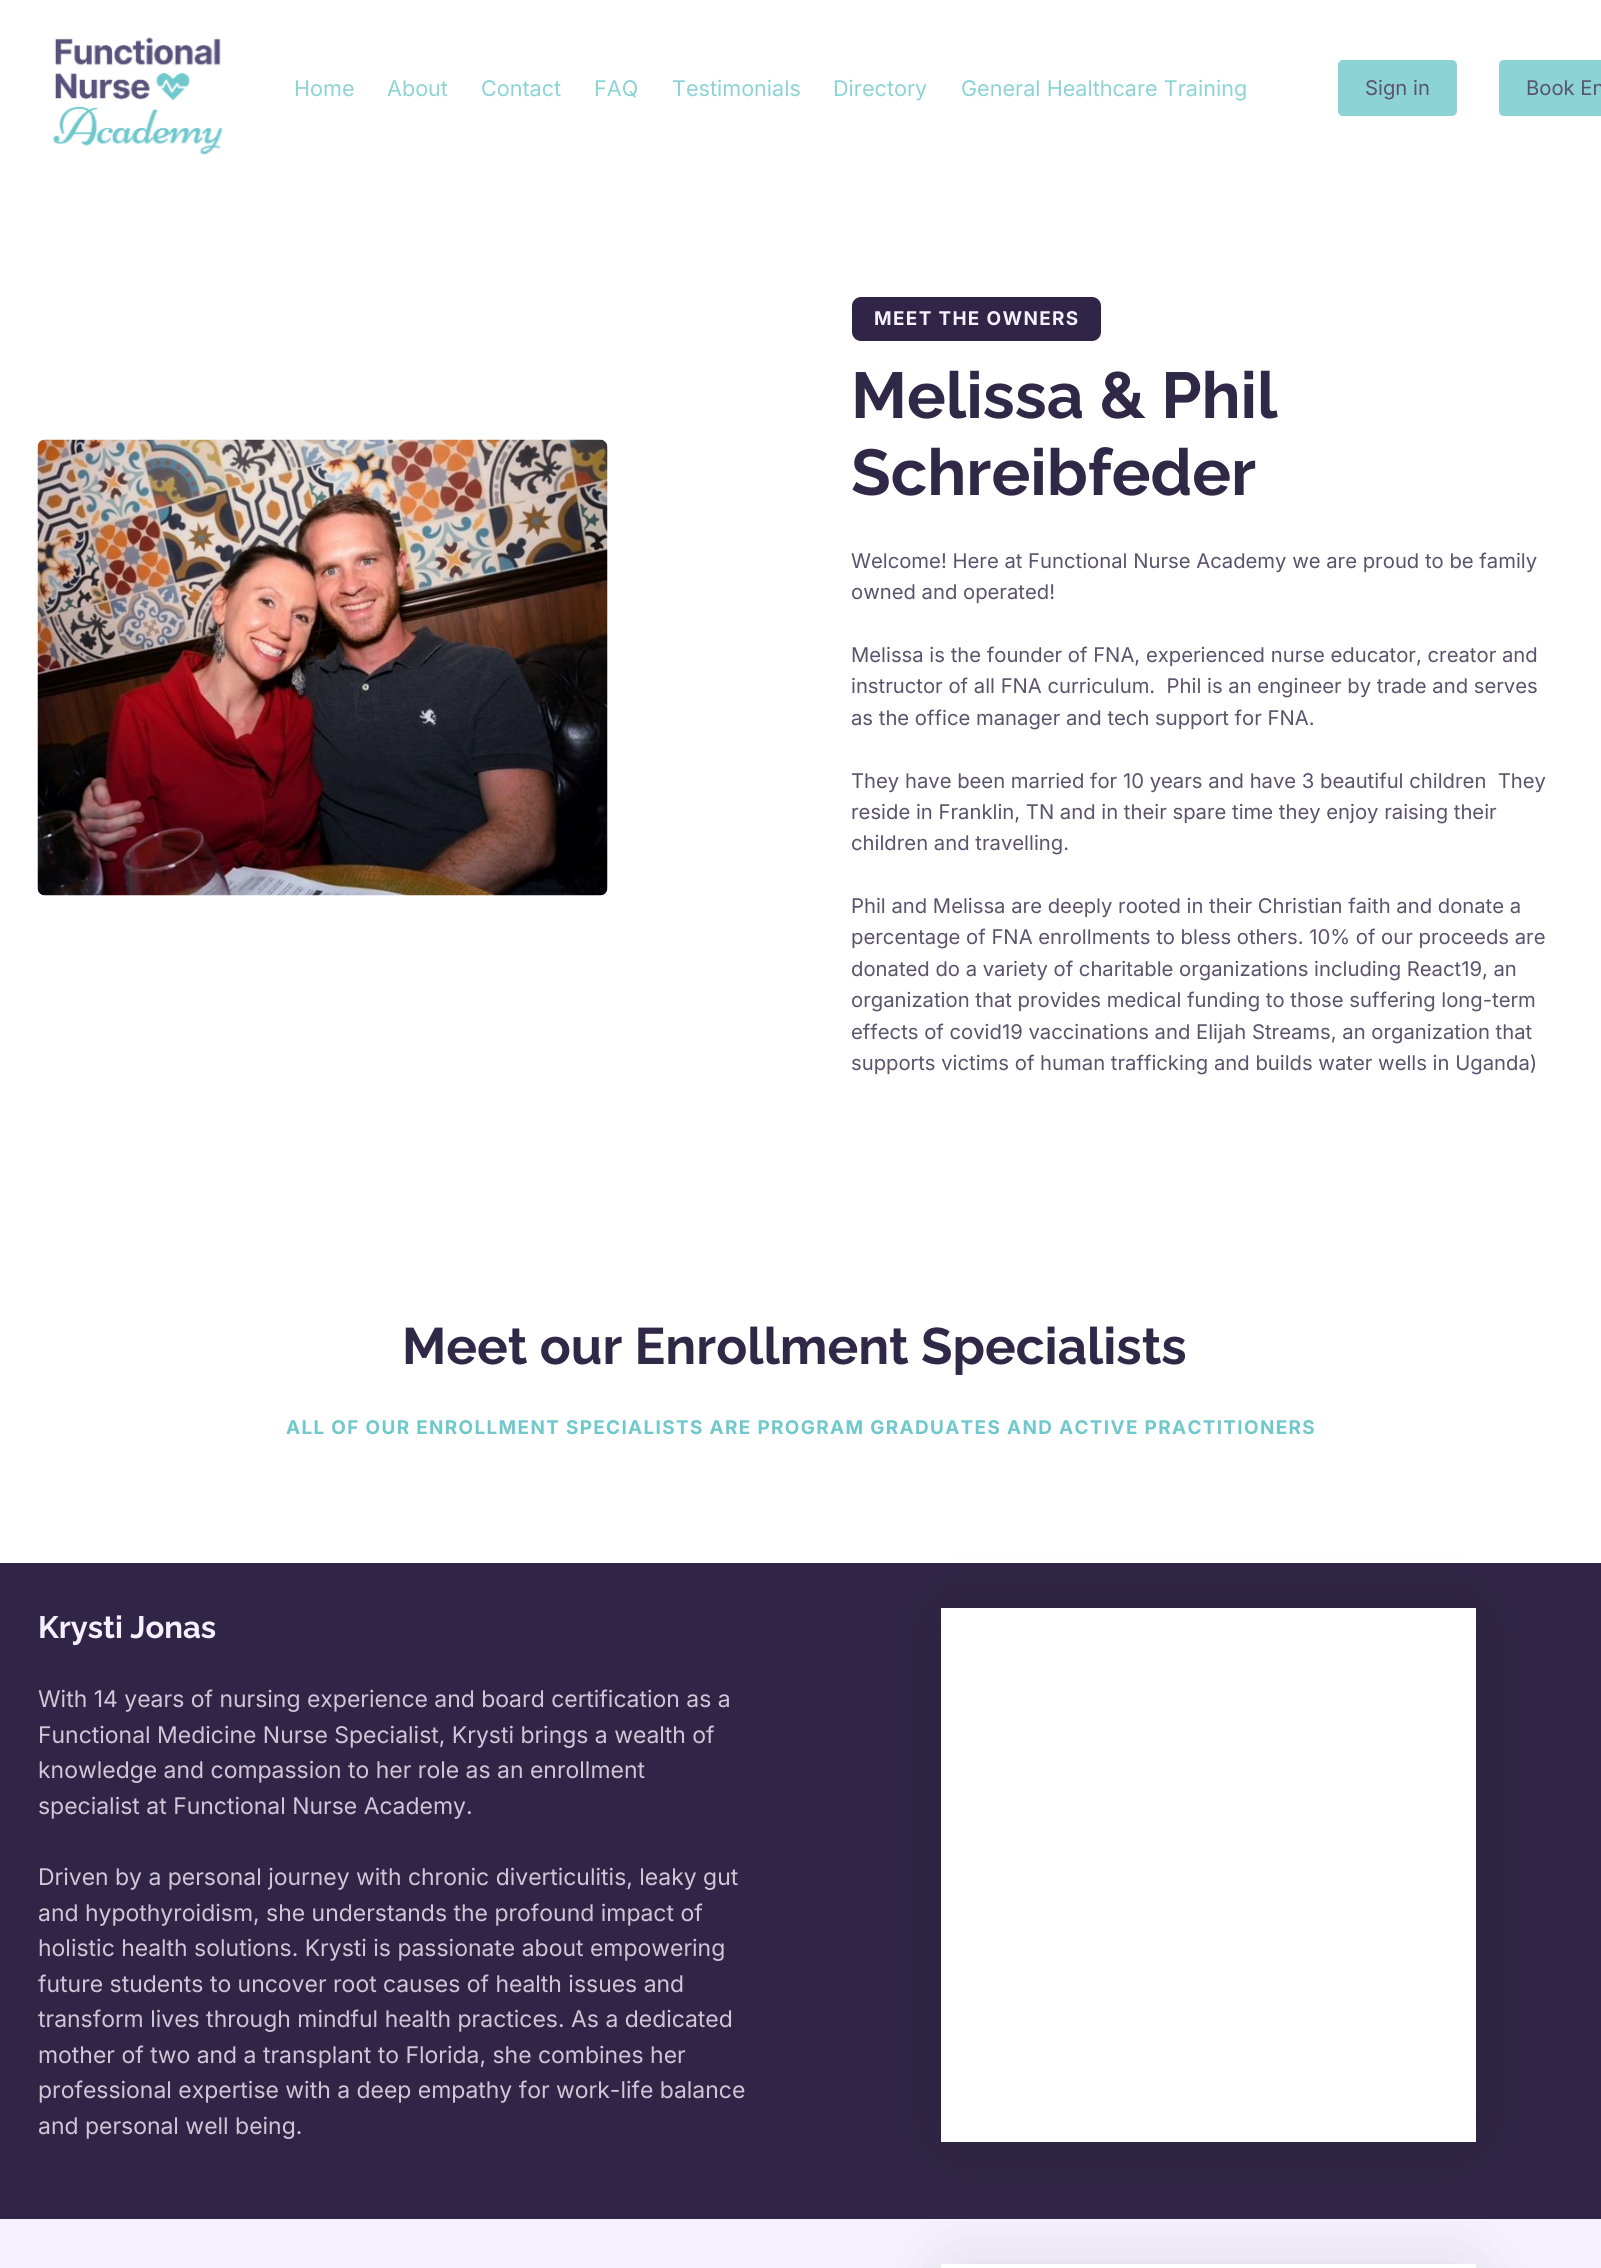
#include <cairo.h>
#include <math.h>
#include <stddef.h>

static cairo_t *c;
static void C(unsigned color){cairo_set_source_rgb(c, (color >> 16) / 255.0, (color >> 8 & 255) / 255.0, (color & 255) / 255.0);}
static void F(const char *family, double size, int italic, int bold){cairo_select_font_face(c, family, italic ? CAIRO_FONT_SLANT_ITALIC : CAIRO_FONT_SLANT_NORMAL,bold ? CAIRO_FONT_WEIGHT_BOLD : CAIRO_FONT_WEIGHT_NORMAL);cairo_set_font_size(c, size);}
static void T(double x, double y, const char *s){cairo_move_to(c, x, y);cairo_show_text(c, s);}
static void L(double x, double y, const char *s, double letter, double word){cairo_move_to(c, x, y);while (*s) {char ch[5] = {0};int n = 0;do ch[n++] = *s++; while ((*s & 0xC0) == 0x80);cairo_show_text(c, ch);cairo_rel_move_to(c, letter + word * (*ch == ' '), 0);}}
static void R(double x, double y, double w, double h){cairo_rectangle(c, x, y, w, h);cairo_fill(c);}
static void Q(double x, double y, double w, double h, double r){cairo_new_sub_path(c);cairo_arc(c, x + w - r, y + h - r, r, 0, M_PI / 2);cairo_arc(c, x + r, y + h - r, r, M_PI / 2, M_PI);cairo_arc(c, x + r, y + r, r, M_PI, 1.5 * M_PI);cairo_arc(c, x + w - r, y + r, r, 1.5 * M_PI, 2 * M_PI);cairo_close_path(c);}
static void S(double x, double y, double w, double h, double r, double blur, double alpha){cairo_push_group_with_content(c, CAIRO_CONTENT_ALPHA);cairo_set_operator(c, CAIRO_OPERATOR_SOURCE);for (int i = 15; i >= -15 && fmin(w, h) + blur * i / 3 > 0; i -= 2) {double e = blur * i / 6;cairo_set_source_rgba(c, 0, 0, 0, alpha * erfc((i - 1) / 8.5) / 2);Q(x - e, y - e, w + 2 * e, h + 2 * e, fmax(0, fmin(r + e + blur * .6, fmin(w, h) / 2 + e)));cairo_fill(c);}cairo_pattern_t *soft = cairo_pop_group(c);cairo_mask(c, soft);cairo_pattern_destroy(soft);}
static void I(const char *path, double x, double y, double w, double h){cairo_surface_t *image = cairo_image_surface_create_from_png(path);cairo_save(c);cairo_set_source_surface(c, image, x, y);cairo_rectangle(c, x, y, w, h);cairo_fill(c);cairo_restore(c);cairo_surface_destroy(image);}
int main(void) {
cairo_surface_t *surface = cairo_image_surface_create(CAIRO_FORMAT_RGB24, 1601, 2268);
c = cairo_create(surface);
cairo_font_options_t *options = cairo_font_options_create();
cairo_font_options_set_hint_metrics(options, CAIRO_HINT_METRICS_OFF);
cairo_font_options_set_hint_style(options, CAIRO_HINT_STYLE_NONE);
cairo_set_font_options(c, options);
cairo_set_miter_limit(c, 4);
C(0xffffff);
cairo_paint(c);
I("1.png",53,37,170,118);
F("Inter",21.6,0,0);
C(0x8cd3d6);
T(294,96,"Home");
T(387,96,"About");
T(481,96,"Contact");
T(594,96,"FAQ");
T(672,96,"Testimonials");
T(833,96,"Directory");
T(961,96,"General Healthcare Training");
Q(1338,60,119,56,5);
cairo_fill(c);
F("Inter",20.25,0,0);
C(0x59536c);
T(1365,95,"Sign in");
C(0x8cd3d6);
cairo_new_path(c);
cairo_move_to(c,1504,60);
cairo_line_to(c,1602,60);
cairo_line_to(c,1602,116);
cairo_line_to(c,1504,116);
cairo_curve_to(c,1501,116,1499,114,1499,111);
cairo_line_to(c,1499,65);
cairo_curve_to(c,1499,62,1501,60,1504,60);
cairo_close_path(c);
cairo_fill(c);
C(0x59536c);
T(1526,95,"Book En");
I("2.png",37,439,571,457);
C(0x302546);
Q(852,297,249,44,9);
cairo_fill(c);
F("Inter",18.9,0,1);
C(0xf5f0fd);
L(874,325,"MEET THE OWNERS",1.35,0);
F("Raleway",64.75,0,1);
C(0x2f2847);
T(851,418,"Melissa & Phil");
T(851,495,"Schreibfeder");
F("Inter",20.25,0,0);
C(0x59536c);
T(851,568,"Welcome! Here at Functional Nurse Academy we are proud to be family");
T(851,599,"owned and operated!");
T(851,662,"Melissa is the founder of FNA, experienced nurse educator, creator and");
T(851,693,"instructor of all FNA curriculum.  Phil is an engineer by trade and serves");
T(851,725,"as the office manager and tech support for FNA.");
T(851,788,"They have been married for 10 years and have 3 beautiful children  They");
T(851,819,"reside in Franklin, TN and in their spare time they enjoy raising their");
T(851,850,"children and travelling.");
T(851,913,"Phil and Melissa are deeply rooted in their Christian faith and donate a");
T(851,944,"percentage of FNA enrollments to bless others. 10% of our proceeds are");
T(851,976,"donated do a variety of charitable organizations including React19, an");
T(851,1007,"organization that provides medical funding to those suffering long-term");
T(851,1039,"effects of covid19 vaccinations and Elijah Streams, an organization that");
T(851,1070,"supports victims of human trafficking and builds water wells in Uganda)");
F("Raleway",51.25,0,1);
C(0x2f2847);
T(402,1364,"Meet our Enrollment Specialists");
F("Inter",18.9,0,1);
C(0x6fc8cc);
L(286,1434,"ALL OF OUR ENROLLMENT SPECIALISTS ARE PROGRAM GRADUATES AND ACTIVE PRACTITIONERS",1.35,0);
C(0x302546);
R(0,1563,1601,656);
F("Raleway",31,0,1);
C(0xf5f0fd);
T(38,1638,"Krysti Jonas");
F("Inter",22.95,0,0);
C(0xcec7d8);
T(38,1707,"With 14 years of nursing experience and board certification as a");
T(38,1743,"Functional Medicine Nurse Specialist, Krysti brings a wealth of");
T(38,1778,"knowledge and compassion to her role as an enrollment");
T(38,1814,"specialist at Functional Nurse Academy.");
T(38,1885,"Driven by a personal journey with chronic diverticulitis, leaky gut");
T(38,1921,"and hypothyroidism, she understands the profound impact of");
T(38,1956,"holistic health solutions. Krysti is passionate about empowering");
T(38,1992,"future students to uncover root causes of health issues and");
T(38,2027,"transform lives through mindful health practices. As a dedicated");
T(38,2063,"mother of two and a transplant to Florida, she combines her");
T(38,2098,"professional expertise with a deep empathy for work-life balance");
T(38,2134,"and personal well being.");
C(0xf5f0fd);
R(0,2219,1601,49);
C(0x000000);
S(956,1623,505,504,0,37.5,.15);
C(0xffffff);
R(941,1608,535,534);
C(0x000000);
S(956,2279,505,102,0,37.5,.15);
C(0xffffff);
R(941,2264,535,4);
cairo_surface_write_to_png(surface, "o.png");
cairo_font_options_destroy(options);
cairo_destroy(c);
cairo_surface_destroy(surface);
return 0;
}
